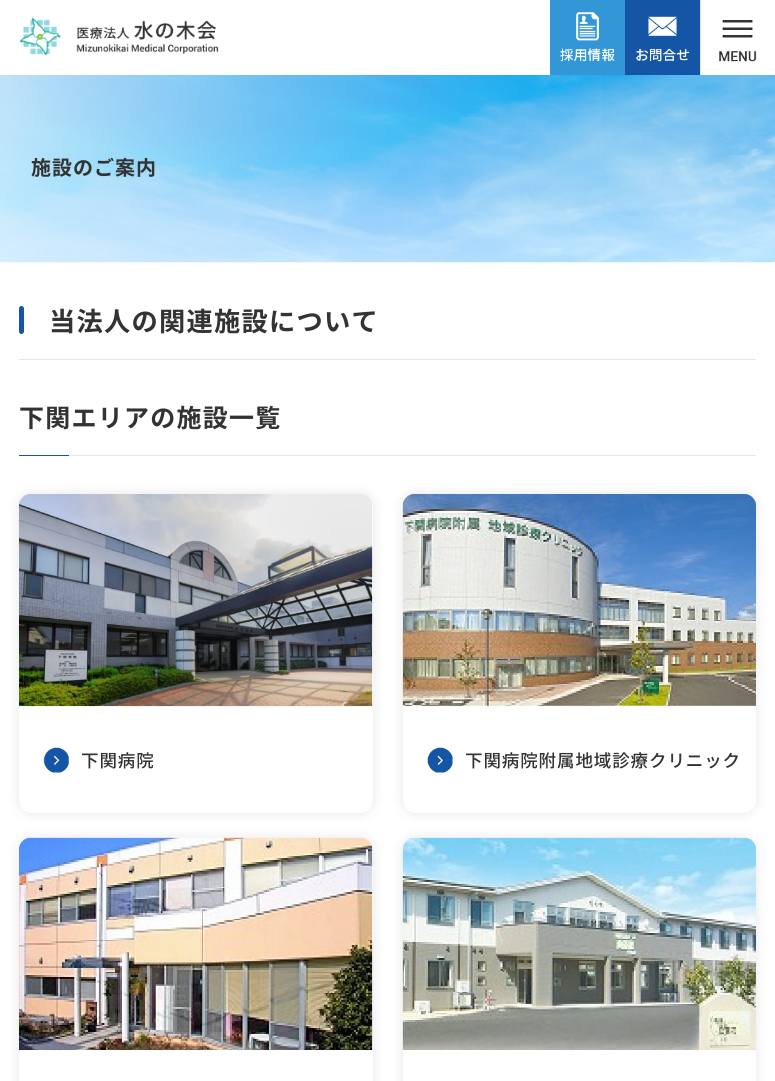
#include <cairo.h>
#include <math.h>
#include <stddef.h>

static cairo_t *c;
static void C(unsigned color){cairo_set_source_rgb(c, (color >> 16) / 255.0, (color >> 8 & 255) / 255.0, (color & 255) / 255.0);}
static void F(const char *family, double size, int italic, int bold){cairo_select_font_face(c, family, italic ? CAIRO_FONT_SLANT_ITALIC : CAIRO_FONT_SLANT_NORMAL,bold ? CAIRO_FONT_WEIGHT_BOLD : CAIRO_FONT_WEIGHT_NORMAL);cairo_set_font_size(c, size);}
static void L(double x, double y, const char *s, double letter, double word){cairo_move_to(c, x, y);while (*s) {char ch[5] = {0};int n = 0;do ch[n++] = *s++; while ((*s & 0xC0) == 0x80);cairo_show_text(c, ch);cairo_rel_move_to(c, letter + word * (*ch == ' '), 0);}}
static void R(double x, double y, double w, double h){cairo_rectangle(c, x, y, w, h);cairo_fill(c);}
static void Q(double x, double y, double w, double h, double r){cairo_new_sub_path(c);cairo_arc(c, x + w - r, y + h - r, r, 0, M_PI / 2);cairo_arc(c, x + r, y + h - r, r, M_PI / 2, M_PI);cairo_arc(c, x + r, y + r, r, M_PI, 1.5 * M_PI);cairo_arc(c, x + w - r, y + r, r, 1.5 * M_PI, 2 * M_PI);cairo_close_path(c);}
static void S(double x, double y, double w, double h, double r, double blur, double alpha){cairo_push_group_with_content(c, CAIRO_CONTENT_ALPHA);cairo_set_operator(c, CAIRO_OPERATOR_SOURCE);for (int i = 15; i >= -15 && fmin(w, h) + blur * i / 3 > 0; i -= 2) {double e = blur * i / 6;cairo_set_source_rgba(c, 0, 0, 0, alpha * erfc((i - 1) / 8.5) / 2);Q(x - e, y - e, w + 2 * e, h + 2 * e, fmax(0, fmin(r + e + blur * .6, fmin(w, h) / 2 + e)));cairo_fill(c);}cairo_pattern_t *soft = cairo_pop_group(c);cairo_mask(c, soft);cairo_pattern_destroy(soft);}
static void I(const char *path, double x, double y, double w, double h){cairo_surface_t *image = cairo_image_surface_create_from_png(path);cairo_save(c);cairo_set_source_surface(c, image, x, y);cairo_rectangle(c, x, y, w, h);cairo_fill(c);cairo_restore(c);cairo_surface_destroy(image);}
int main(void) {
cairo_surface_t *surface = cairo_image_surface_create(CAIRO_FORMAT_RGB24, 775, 1081);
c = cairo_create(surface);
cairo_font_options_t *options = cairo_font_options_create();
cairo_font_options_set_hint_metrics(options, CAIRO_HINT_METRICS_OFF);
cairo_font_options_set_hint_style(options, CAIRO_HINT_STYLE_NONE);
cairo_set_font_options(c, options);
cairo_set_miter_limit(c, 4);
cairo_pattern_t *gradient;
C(0xffffff);
cairo_paint(c);
I("1.png",19,17,200,39);
I("2.png",550,0,75,75);
I("3.png",625,0,75,75);
I("4.png",700,0,57,75);
I("5.png",0,75,775,188);
gradient = cairo_pattern_create_linear(0,169,620,169);
cairo_pattern_add_color_stop_rgba(gradient,0,1,1,1,.75);
cairo_pattern_add_color_stop_rgba(gradient,1,1,1,1,0);
cairo_set_source(c,gradient);
cairo_pattern_destroy(gradient);
R(0,75,602,188);
F("Noto Sans JP",20,0,1);
C(0x333333);
L(31,175,"施設のご案内",1,0);
C(0xe6e6e6);
R(19,359,737,1);
C(0x1455a5);
Q(19,306,5,28,2.5);
cairo_fill(c);
F("Noto Sans JP",26.25,0,1);
C(0x333333);
L(49,331,"当法人の関連施設について",1.25,0);
F("Noto Sans JP",25,0,1);
L(19,427,"下関エリアの施設一覧",1.25,0);
C(0x1455a5);
R(19,455,50,1);
C(0xe6e6e6);
R(69,455,687,1);
C(0x000000);
S(19,494,354,319,13,6,.1);
C(0xffffff);
Q(19,494,354,319,13);
cairo_fill(c);
I("6.png",19,494,354,213);
I("7.png",43,747,26,26);
F("Noto Sans JP Medium",17.5,0,0);
C(0x333333);
L(81,767,"下関病院",.9,0);
C(0x000000);
S(403,494,353,319,13,6,.1);
C(0xffffff);
Q(403,494,353,319,13);
cairo_fill(c);
I("8.png",402,494,354,213);
I("9.png",427,747,26,26);
C(0x333333);
L(465,767,"下関病院附属地域診療クリニック",.9,0);
C(0x000000);
S(19,838,354,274,13,6,.1);
C(0xffffff);
Q(19,838,354,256,13);
cairo_fill(c);
I("10.png",19,837,354,213);
cairo_save(c);
cairo_set_fill_rule(c,CAIRO_FILL_RULE_EVEN_ODD);
cairo_new_path(c);
cairo_move_to(c,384,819);
cairo_line_to(c,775,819);
cairo_line_to(c,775,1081);
cairo_line_to(c,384,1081);
cairo_close_path(c);
cairo_move_to(c,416,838);
cairo_line_to(c,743,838);
cairo_curve_to(c,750,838,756,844,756,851);
cairo_line_to(c,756,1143);
cairo_curve_to(c,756,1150,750,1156,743,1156);
cairo_line_to(c,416,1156);
cairo_curve_to(c,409,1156,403,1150,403,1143);
cairo_line_to(c,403,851);
cairo_curve_to(c,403,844,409,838,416,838);
cairo_close_path(c);
cairo_clip(c);
C(0x000000);
S(403,838,353,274,13,6,.1);
cairo_restore(c);
I("11.png",402,837,354,213);
cairo_surface_write_to_png(surface, "o.png");
cairo_font_options_destroy(options);
cairo_destroy(c);
cairo_surface_destroy(surface);
return 0;
}
